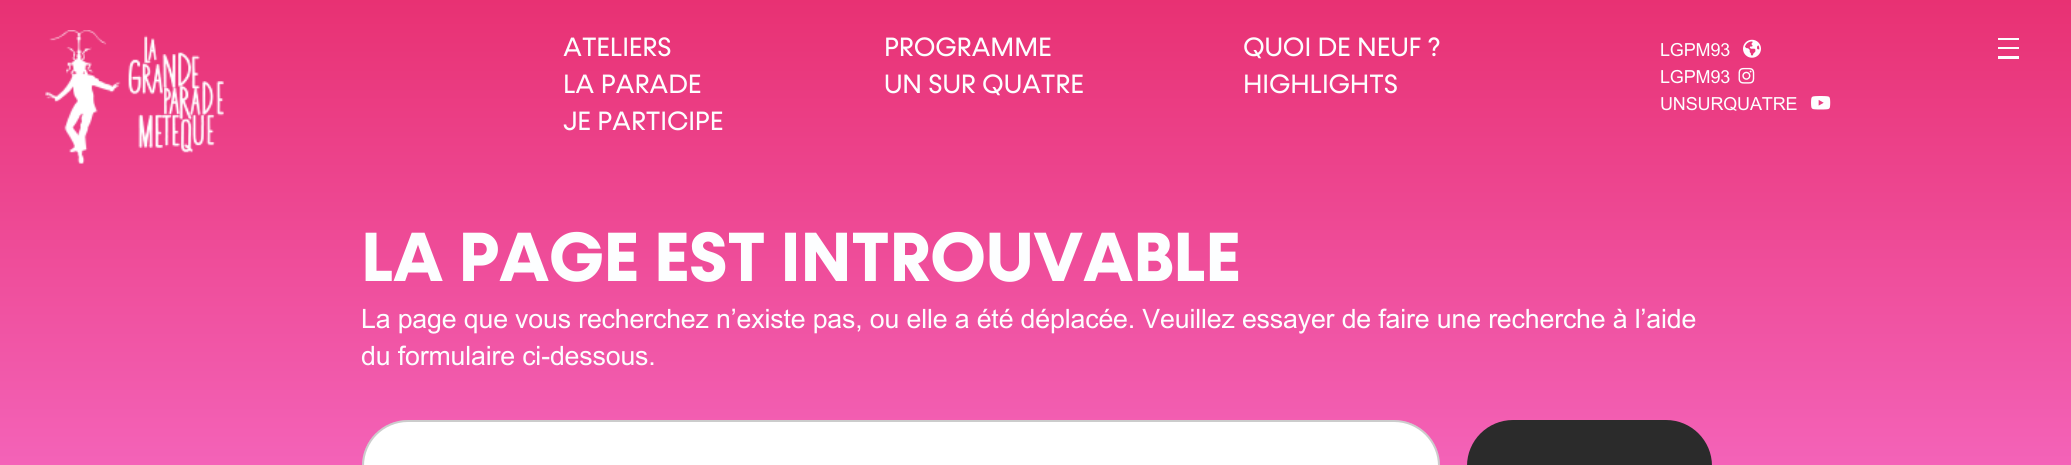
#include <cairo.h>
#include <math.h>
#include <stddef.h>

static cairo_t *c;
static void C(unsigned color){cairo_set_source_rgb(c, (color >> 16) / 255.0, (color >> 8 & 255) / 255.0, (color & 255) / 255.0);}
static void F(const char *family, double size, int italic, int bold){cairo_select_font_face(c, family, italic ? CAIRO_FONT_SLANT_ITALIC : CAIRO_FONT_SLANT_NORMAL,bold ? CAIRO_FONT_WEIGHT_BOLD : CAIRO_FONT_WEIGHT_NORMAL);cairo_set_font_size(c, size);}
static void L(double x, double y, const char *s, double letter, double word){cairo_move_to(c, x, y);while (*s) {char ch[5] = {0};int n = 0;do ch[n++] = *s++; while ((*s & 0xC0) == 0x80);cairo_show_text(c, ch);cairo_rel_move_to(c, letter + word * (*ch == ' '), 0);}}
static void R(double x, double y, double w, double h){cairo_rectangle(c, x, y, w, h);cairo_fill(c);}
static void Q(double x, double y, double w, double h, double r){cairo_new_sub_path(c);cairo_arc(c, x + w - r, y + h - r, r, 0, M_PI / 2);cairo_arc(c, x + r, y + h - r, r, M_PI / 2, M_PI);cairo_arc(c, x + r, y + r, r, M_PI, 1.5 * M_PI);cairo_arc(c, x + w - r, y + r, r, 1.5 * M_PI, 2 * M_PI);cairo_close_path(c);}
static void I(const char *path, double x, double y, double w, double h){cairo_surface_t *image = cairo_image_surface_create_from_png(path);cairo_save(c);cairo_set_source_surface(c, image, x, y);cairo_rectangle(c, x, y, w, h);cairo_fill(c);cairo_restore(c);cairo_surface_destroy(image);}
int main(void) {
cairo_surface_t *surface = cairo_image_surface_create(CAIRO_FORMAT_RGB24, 2071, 465);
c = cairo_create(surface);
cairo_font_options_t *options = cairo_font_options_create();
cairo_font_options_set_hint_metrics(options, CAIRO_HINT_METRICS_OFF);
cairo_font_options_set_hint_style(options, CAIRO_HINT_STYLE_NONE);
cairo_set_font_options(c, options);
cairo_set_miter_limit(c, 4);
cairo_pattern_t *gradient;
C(0xffffff);
cairo_paint(c);
gradient = cairo_pattern_create_linear(1036,0,1036,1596);
cairo_pattern_add_color_stop_rgba(gradient,0,0.91,0.192,0.451,1);
cairo_pattern_add_color_stop_rgba(gradient,.3,0.957,0.392,0.729,1);
cairo_pattern_add_color_stop_rgba(gradient,.4,0.388,0.439,1,1);
cairo_pattern_add_color_stop_rgba(gradient,1,0.388,0.439,1,1);
cairo_set_source(c,gradient);
cairo_pattern_destroy(gradient);
R(0,0,2071,465);
I("1.png",45,30,179,134);
F("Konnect",26.7,0,0);
C(0xfdfeff);
L(563,56,"ATELIERS",-.15,0);
L(563,93,"LA PARADE",-.15,0);
L(563,130,"JE PARTICIPE",-.15,0);
L(884,56,"PROGRAMME",-.15,0);
L(884,93,"UN SUR QUATRE",-.15,0);
L(1243,56,"QUOI DE NEUF ?",-.15,0);
L(1243,93,"HIGHLIGHTS",-.15,0);
F("Arial",18,0,0);
L(1660,56,"LGPM93",-.15,0);
I("2.png",1743,39,18,19);
L(1660,83,"LGPM93",-.15,0);
I("3.png",1738,67,17,17);
L(1660,110,"UNSURQUATRE",-.15,0);
I("4.png",1811,96,20,14);
R(1998,38,21,2);
R(1998,47,21,2);
R(1998,56,21,3);
F("Konnect",70,0,1);
L(361,281,"LA PAGE EST INTROUVABLE",-.15,0);
F("Arial",26.7,0,0);
L(361,328,"La page que vous recherchez n’existe pas, ou elle a été déplacée. Veuillez essayer de faire une recherche à l’aide",-.15,0);
L(361,365,"du formulaire ci-dessous.",-.15,0);
C(0xffffff);
Q(362,420,1078,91,46);
cairo_fill(c);
Q(363,421,1076,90,45);
cairo_set_source_rgba(c,0,0,0,0.2);
cairo_stroke(c);
C(0x2b2b2b);
Q(1467,420,245,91,46);
cairo_fill(c);
cairo_surface_write_to_png(surface, "o.png");
cairo_font_options_destroy(options);
cairo_destroy(c);
cairo_surface_destroy(surface);
return 0;
}
